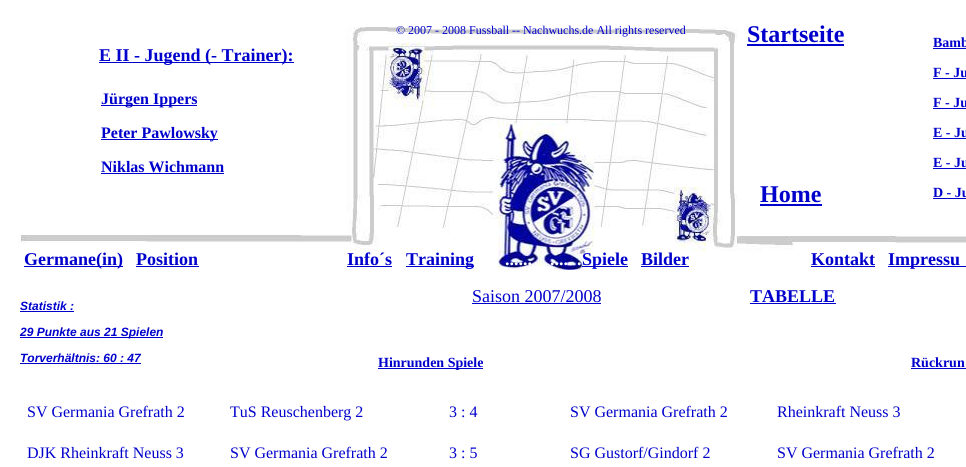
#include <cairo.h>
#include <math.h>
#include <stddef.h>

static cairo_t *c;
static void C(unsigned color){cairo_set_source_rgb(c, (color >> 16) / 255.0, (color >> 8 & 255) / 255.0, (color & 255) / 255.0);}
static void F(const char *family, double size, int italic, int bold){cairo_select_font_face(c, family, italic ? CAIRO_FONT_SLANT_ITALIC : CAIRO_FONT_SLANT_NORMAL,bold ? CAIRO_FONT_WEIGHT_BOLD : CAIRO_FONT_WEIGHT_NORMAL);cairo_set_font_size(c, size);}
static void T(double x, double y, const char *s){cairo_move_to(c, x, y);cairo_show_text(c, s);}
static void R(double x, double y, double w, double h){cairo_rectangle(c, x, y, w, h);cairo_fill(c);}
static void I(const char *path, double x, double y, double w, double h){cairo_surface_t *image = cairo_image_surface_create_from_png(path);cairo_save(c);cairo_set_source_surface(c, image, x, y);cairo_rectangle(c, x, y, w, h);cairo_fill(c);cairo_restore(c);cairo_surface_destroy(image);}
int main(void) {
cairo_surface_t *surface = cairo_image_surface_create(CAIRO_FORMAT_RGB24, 966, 467);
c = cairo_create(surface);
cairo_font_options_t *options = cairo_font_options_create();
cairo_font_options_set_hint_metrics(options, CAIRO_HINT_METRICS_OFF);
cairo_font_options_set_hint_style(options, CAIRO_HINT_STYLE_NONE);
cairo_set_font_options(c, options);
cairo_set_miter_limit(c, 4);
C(0xffffff);
cairo_paint(c);
I("1.png",18,27,948,243);
F("Liberation Serif",12,0,0);
C(0x0000cc);
T(396,34,"© 2007 - 2008 Fussball -- Nachwuchs.de All rights reserved");
F("Liberation Serif",24,0,1);
T(747,42,"Startseite");
R(747,44,97,2);
R(99,62,195,1);
F("Liberation Serif",18,0,1);
T(99,61,"E II - Jugend (- Trainer):");
F("Liberation Serif",14,0,1);
T(933,47,"Bamb");
R(933,48,33,1);
T(933,77,"F - Ju");
R(933,78,33,1);
T(933,107,"F - Ju");
R(933,108,33,1);
T(933,137,"E - Ju");
R(933,138,33,1);
T(933,167,"E - Ju");
R(933,168,33,1);
T(933,197,"D - Ju");
R(933,198,33,1);
R(101,105,96,1);
F("Liberation Serif",16,0,1);
T(101,104,"Jürgen Ippers");
R(101,139,117,1);
T(101,138,"Peter Pawlowsky");
T(101,172,"Niklas Wichmann");
R(101,173,123,1);
F("Liberation Serif",24,0,1);
T(760,202,"Home");
R(760,204,62,2);
R(24,266,99,1);
F("Liberation Serif",18,0,1);
T(24,265,"Germane(in)");
T(136,265,"Position");
R(136,266,63,1);
T(347,265,"Info´s");
R(347,266,45,1);
R(406,266,68,1);
T(406,265,"Training");
C(0xffffff);
T(505,265,"......");
T(550,265,"..... .");
C(0x0000cc);
R(582,266,46,1);
T(582,265,"Spiele");
T(641,265,"Bilder");
R(641,266,48,1);
T(811,265,"Kontakt");
R(811,266,64,1);
R(888,266,78,1);
T(888,265,"Impressu");
F("Liberation Serif",18,0,0);
T(472,302,"Saison 2007/2008");
R(472,303,129,1);
F("Liberation Serif",18,0,1);
T(750,302,"TABELLE");
R(750,303,86,1);
F("Liberation Sans",12,1,1);
T(20,310,"Statistik :");
R(20,311,54,1);
R(20,337,143,1);
T(20,336,"29 Punkte aus 21 Spielen");
T(20,362,"Torverhältnis: 60 : 47");
R(20,363,121,1);
R(378,368,105,1);
F("Liberation Serif",14,0,1);
T(378,367,"Hinrunden Spiele");
T(911,367,"Rückrun");
R(911,368,55,1);
F("Liberation Serif",16,0,0);
T(27,417,"SV Germania Grefrath 2");
T(230,417,"TuS Reuschenberg 2");
T(449,417,"3 : 4");
T(27,458,"DJK Rheinkraft Neuss 3");
T(230,458,"SV Germania Grefrath 2");
T(449,458,"3 : 5");
T(570,417,"SV Germania Grefrath 2");
T(777,417,"Rheinkraft Neuss 3");
T(570,458,"SG Gustorf/Gindorf 2");
T(777,458,"SV Germania Grefrath 2");
cairo_surface_write_to_png(surface, "o.png");
cairo_font_options_destroy(options);
cairo_destroy(c);
cairo_surface_destroy(surface);
return 0;
}
